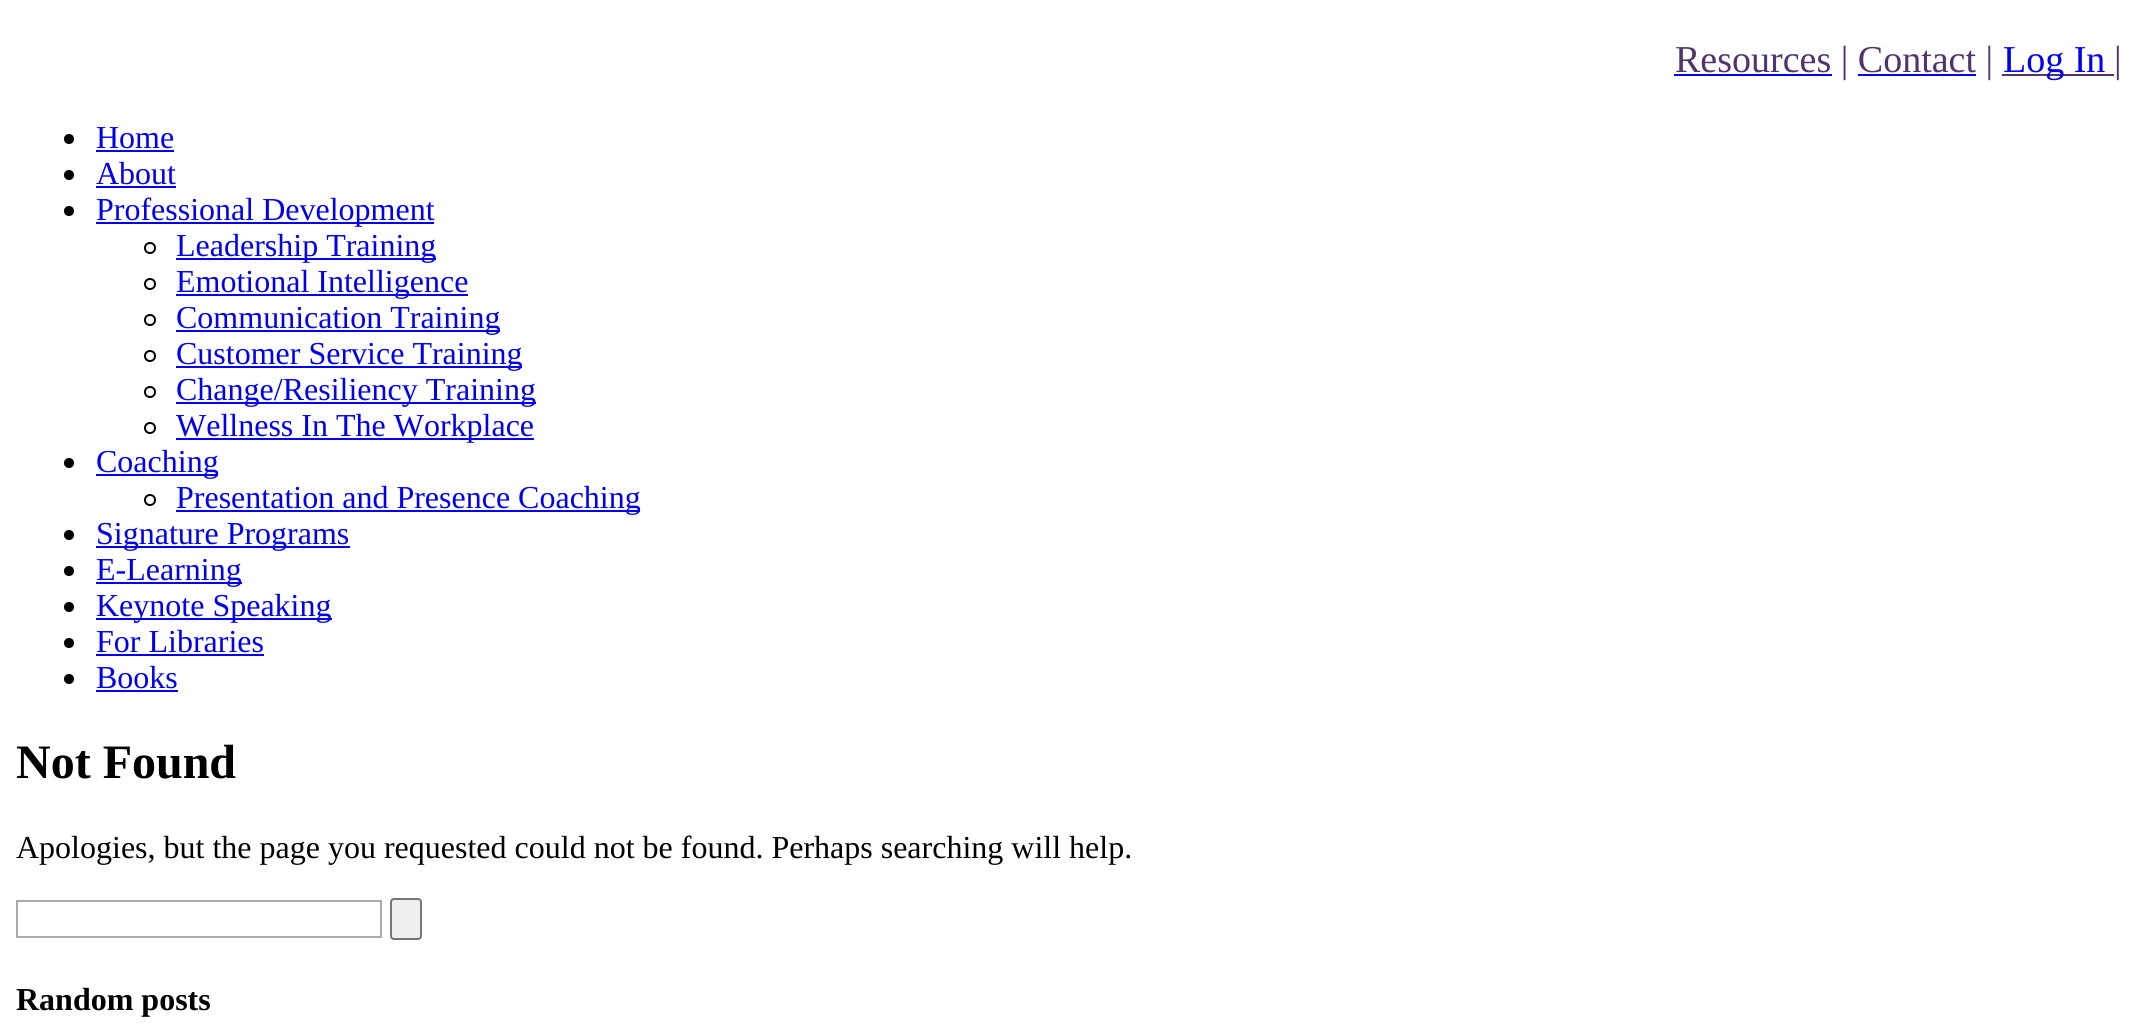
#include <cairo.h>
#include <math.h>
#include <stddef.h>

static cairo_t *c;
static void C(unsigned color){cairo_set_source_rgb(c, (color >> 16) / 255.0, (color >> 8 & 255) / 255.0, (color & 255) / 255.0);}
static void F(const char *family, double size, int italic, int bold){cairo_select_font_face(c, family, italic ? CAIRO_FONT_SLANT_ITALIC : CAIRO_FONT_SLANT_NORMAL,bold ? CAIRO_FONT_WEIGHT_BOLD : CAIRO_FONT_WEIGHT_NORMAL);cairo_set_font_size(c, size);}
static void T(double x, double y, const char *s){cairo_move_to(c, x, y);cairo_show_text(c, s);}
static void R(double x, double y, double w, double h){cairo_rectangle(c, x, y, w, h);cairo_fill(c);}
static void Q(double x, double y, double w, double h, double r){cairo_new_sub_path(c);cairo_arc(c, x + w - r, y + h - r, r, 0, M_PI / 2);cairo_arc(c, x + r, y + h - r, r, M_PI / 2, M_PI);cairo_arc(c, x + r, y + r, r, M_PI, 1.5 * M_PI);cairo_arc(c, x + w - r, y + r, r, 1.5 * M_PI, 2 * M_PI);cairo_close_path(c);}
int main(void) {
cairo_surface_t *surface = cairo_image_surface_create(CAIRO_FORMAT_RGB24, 2138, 1026);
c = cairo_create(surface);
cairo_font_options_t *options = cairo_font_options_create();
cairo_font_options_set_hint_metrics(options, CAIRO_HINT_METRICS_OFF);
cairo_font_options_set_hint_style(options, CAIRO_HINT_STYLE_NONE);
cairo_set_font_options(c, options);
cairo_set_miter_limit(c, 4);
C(0xffffff);
cairo_paint(c);
C(0x0000ee);
R(1674,74,158,2);
F("Liberation Serif",38,0,0);
C(0x51346a);
T(1675,72,"Resources | Contact |");
R(2002,74,102,2);
C(0x0000ee);
T(2003,72,"Log In");
C(0x51346a);
R(2104,74,10,2);
T(2114,72,"|");
C(0x0000ee);
R(1858,74,118,2);
C(0x000000);
cairo_new_path(c);
cairo_arc(c,69,139,5,0,2 * M_PI);
cairo_fill(c);
F("Liberation Serif",32,0,0);
C(0x0000ee);
T(96,148,"Home");
R(96,150,78,2);
C(0x000000);
cairo_new_path(c);
cairo_arc(c,69,175,5,0,2 * M_PI);
cairo_fill(c);
C(0x0000ee);
T(96,184,"About");
R(96,186,80,2);
C(0x000000);
cairo_new_path(c);
cairo_arc(c,69,211,5,0,2 * M_PI);
cairo_fill(c);
C(0x0000ee);
R(96,222,338,2);
T(96,220,"Professional Development");
cairo_new_path(c);
cairo_arc(c,150,248,5,0,2 * M_PI);
C(0x000000);
cairo_stroke(c);
C(0x0000ee);
R(176,258,260,2);
T(176,256,"Leadership Training");
cairo_new_path(c);
cairo_arc(c,150,284,5,0,2 * M_PI);
C(0x000000);
cairo_stroke(c);
C(0x0000ee);
R(176,294,292,2);
T(176,292,"Emotional Intelligence");
cairo_new_path(c);
cairo_arc(c,150,320,5,0,2 * M_PI);
C(0x000000);
cairo_stroke(c);
C(0x0000ee);
R(176,330,324,2);
T(176,328,"Communication Training");
cairo_new_path(c);
cairo_arc(c,150,356,5,0,2 * M_PI);
C(0x000000);
cairo_stroke(c);
C(0x0000ee);
R(176,366,346,2);
T(176,364,"Customer Service Training");
cairo_new_path(c);
cairo_arc(c,150,392,5,0,2 * M_PI);
C(0x000000);
cairo_stroke(c);
C(0x0000ee);
R(176,402,360,2);
T(176,400,"Change/Resiliency Training");
cairo_new_path(c);
cairo_arc(c,150,428,5,0,2 * M_PI);
C(0x000000);
cairo_stroke(c);
C(0x0000ee);
R(176,438,358,2);
T(176,436,"Wellness In The Workplace");
C(0x000000);
cairo_new_path(c);
cairo_arc(c,69,463,5,0,2 * M_PI);
cairo_fill(c);
C(0x0000ee);
R(96,474,122,2);
T(96,472,"Coaching");
cairo_new_path(c);
cairo_arc(c,150,500,5,0,2 * M_PI);
C(0x000000);
cairo_stroke(c);
C(0x0000ee);
R(176,510,464,2);
T(176,508,"Presentation and Presence Coaching");
C(0x000000);
cairo_new_path(c);
cairo_arc(c,69,535,5,0,2 * M_PI);
cairo_fill(c);
C(0x0000ee);
R(96,546,254,2);
T(96,544,"Signature Programs");
C(0x000000);
cairo_new_path(c);
cairo_arc(c,69,571,5,0,2 * M_PI);
cairo_fill(c);
C(0x0000ee);
R(96,582,146,2);
T(96,580,"E-Learning");
C(0x000000);
cairo_new_path(c);
cairo_arc(c,69,607,5,0,2 * M_PI);
cairo_fill(c);
C(0x0000ee);
R(96,618,236,2);
T(96,616,"Keynote Speaking");
C(0x000000);
cairo_new_path(c);
cairo_arc(c,69,643,5,0,2 * M_PI);
cairo_fill(c);
C(0x0000ee);
T(96,652,"For Libraries");
R(96,654,168,2);
C(0x000000);
cairo_new_path(c);
cairo_arc(c,69,679,5,0,2 * M_PI);
cairo_fill(c);
C(0x0000ee);
T(96,688,"Books");
R(96,690,82,2);
F("Liberation Serif",48,0,1);
C(0x000000);
T(16,778,"Not Found");
F("Liberation Serif",32,0,0);
T(16,858,"Apologies, but the page you requested could not be found. Perhaps searching will help.");
cairo_rectangle(c,17,901,364,36);
C(0xaaaaaa);
cairo_stroke(c);
C(0xefefef);
Q(391,899,30,40,3);
cairo_fill_preserve(c);
C(0x767676);
cairo_stroke(c);
F("Liberation Serif",32,0,1);
C(0x000000);
T(16,1010,"Random posts");
cairo_surface_write_to_png(surface, "o.png");
cairo_font_options_destroy(options);
cairo_destroy(c);
cairo_surface_destroy(surface);
return 0;
}
